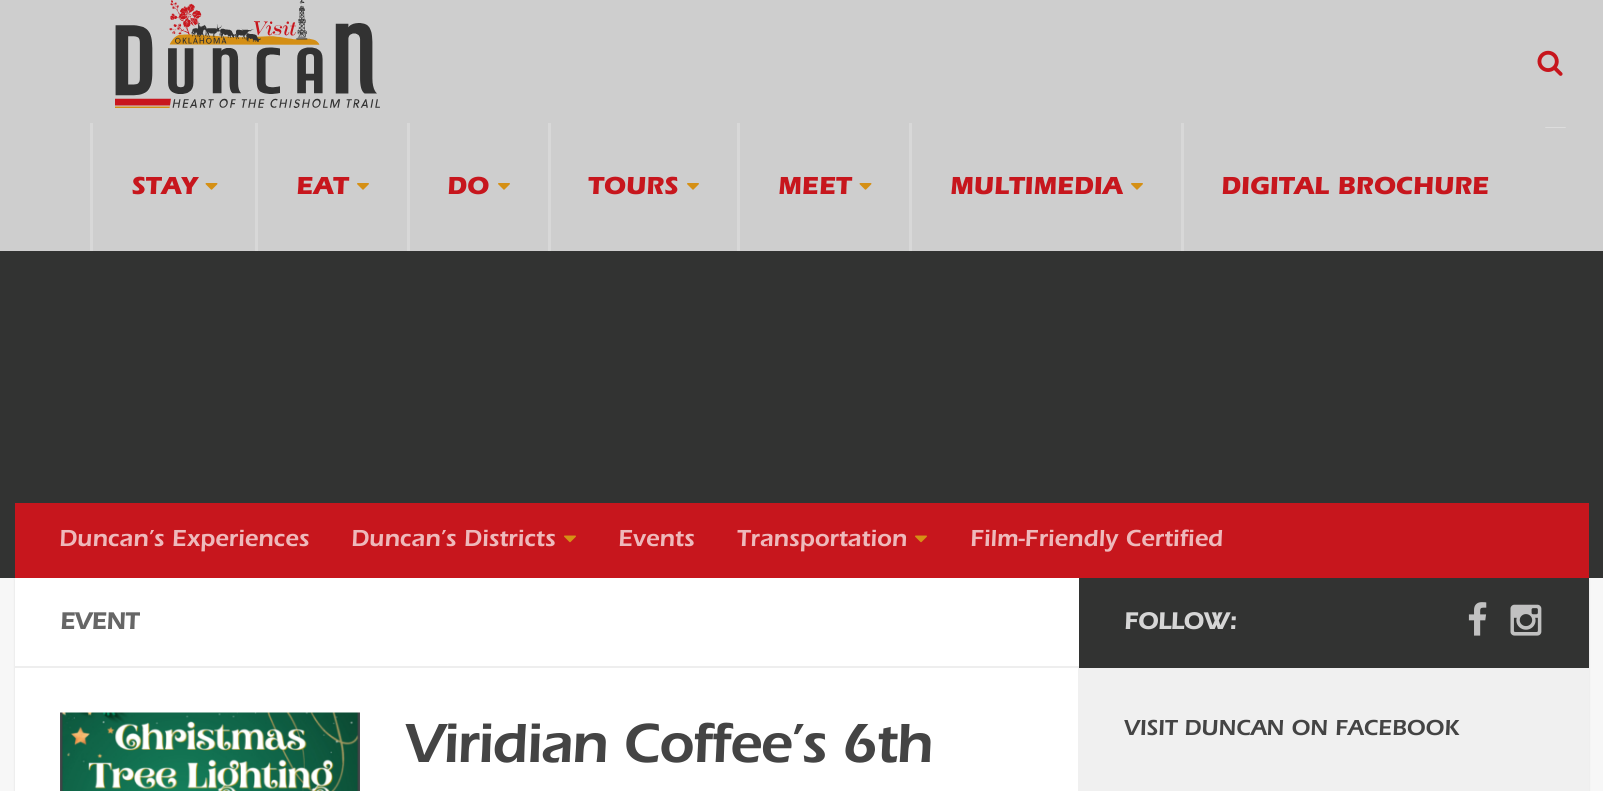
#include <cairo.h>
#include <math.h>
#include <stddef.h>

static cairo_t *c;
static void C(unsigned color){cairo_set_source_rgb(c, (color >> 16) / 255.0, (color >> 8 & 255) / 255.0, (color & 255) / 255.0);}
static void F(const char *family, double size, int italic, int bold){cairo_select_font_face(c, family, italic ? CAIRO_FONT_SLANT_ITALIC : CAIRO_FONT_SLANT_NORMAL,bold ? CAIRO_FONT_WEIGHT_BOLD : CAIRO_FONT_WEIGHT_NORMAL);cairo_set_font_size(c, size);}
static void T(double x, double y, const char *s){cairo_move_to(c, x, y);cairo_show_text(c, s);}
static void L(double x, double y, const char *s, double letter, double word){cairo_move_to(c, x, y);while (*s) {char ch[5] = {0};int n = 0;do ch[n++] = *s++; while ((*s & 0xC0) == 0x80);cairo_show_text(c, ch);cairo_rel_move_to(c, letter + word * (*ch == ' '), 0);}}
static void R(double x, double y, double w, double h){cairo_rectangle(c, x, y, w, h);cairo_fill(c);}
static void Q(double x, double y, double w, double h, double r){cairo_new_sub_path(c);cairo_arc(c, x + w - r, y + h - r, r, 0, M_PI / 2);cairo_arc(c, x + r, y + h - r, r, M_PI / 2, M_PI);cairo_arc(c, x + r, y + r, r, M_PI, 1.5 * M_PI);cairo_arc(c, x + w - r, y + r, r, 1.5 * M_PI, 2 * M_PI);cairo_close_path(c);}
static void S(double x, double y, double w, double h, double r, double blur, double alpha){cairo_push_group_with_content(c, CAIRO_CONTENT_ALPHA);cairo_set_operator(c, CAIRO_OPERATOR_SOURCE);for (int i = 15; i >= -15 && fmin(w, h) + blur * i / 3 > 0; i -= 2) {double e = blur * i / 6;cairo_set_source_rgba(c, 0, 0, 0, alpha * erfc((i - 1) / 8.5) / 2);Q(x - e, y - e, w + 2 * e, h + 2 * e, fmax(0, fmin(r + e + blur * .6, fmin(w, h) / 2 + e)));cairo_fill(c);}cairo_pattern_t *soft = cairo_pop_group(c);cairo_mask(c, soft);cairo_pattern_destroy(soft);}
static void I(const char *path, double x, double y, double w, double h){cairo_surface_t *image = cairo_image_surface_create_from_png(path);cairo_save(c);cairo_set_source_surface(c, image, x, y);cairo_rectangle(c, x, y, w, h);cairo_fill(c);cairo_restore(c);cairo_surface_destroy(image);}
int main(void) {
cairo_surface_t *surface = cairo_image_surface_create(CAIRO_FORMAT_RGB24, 1603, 791);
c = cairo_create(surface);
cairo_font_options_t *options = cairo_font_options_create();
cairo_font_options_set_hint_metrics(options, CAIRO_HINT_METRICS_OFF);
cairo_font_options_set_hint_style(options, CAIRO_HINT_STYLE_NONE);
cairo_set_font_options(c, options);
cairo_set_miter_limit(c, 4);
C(0x323332);
cairo_paint(c);
C(0xcecece);
R(0,0,1603,251);
I("1.png",115,0,265,108);
I("2.png",1537,50,26,26);
cairo_save(c);
cairo_rectangle(c,1521,0,53,128);
cairo_clip(c);
C(0xeeeeee);
cairo_new_path(c);
cairo_move_to(c,1545,127.5);
cairo_line_to(c,1566,127.5);
cairo_line_to(c,1555.5,138);
cairo_close_path(c);
cairo_fill(c);
cairo_restore(c);
C(0xd8d8d8);
R(90,123,3,128);
F("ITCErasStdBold",25.5,0,1);
C(0xc7161d);
T(131,194,"STAY");
I("3.png",205,183,13,7);
C(0xd8d8d8);
R(255,123,3,128);
C(0xc7161d);
T(296,194,"EAT");
I("4.png",357,183,12,7);
C(0xd8d8d8);
R(407,123,3,128);
C(0xc7161d);
T(447,194,"DO");
I("4.png",498,183,12,7);
C(0xd8d8d8);
R(548,123,3,128);
C(0xc7161d);
T(588,194,"TOURS");
I("4.png",687,183,12,7);
C(0xd8d8d8);
R(737,123,3,128);
C(0xc7161d);
T(778,194,"MEET");
I("3.png",859,183,13,7);
C(0xd8d8d8);
R(909,123,3,128);
C(0xc7161d);
T(950,194,"MULTIMEDIA");
I("4.png",1131,183,12,7);
C(0xd8d8d8);
R(1181,123,3,128);
C(0xc7161d);
T(1221,194,"DIGITAL BROCHURE");
C(0xf7f7f7);
R(0,578,1603,213);
C(0x000000);
S(15,579,1574,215,0,1,.1);
C(0xc7161d);
R(15,503,1574,75);
F("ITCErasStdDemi",24,0,0);
C(0xeeb9bb);
T(59,546,"Duncan’s Experiences");
T(351,546,"Duncan’s Districts");
I("5.png",564,535,12,8);
T(618,546,"Events");
T(737,546,"Transportation");
I("5.png",915,535,12,8);
T(970,546,"Film-Friendly Certified");
C(0xffffff);
R(15,668,1063,123);
C(0xf0f0f0);
R(1078,668,511,123);
C(0xffffff);
R(15,578,1064,88);
C(0xeeeeee);
R(15,666,1064,2);
F("ITCErasStdDemi",24,0,1);
C(0x666666);
T(60,629,"EVENT");
I("6.png",60,712,300,79);
F("ITCErasStdDemi",57,0,0);
C(0x444444);
L(405,762,"Viridian Coffee’s 6th",-1.5,0);
C(0x323332);
R(1079,578,510,90);
F("ITCErasStdDemi",24,0,1);
C(0xd6d6d6);
T(1124,629,"FOLLOW:");
I("7.png",1468,602,19,34);
I("8.png",1510,604,32,32);
F("ITCErasStdDemi",22.5,0,0);
C(0x444444);
T(1124,735,"VISIT DUNCAN ON FACEBOOK");
cairo_surface_write_to_png(surface, "o.png");
cairo_font_options_destroy(options);
cairo_destroy(c);
cairo_surface_destroy(surface);
return 0;
}
